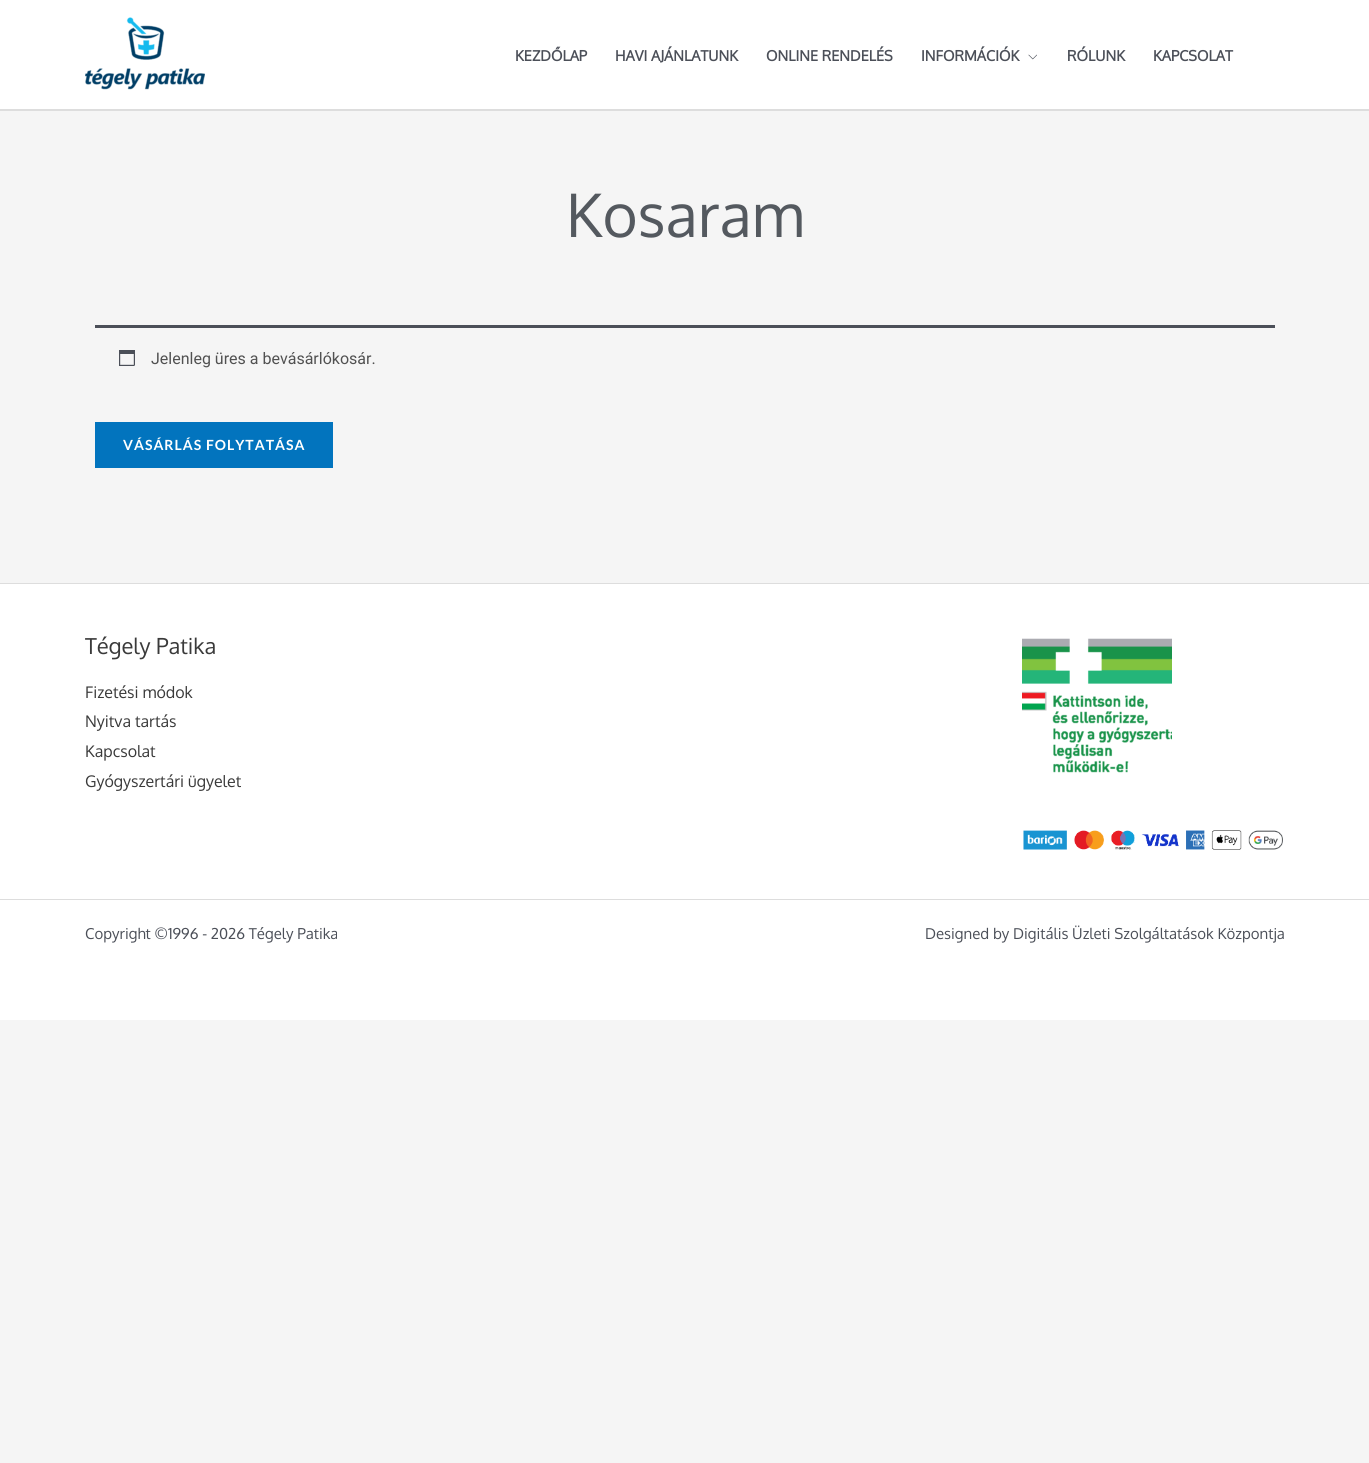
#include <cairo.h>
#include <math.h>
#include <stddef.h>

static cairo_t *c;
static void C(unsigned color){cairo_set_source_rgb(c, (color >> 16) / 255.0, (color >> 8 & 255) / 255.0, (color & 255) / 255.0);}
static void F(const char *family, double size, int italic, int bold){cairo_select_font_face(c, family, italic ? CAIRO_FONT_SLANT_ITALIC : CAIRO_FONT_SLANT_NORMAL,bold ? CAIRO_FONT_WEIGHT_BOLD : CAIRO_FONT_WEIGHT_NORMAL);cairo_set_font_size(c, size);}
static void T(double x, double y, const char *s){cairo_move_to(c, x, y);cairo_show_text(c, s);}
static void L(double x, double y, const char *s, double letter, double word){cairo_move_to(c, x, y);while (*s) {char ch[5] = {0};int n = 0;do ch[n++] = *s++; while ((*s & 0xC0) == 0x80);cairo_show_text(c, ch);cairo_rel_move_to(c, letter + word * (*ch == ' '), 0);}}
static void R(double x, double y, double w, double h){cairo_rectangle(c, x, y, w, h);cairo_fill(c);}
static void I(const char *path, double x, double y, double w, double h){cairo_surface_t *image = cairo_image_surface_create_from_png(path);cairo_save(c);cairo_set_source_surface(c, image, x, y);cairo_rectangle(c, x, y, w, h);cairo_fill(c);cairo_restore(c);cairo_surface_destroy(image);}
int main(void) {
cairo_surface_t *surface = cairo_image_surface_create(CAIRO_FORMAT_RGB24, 1369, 1463);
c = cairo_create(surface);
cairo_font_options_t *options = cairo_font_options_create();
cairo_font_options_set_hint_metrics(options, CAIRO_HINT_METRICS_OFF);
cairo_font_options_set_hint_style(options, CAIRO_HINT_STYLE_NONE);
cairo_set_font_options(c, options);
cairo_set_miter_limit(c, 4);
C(0xf5f5f5);
cairo_paint(c);
C(0xffffff);
R(0,0,1369,109);
C(0xdddddd);
R(0,109,1369,2);
I("1.png",85,17,120,73);
F("Oxygen",14.5,0,1);
C(0x4b4f58);
T(515,61,"KEZDŐLAP");
T(615,61,"HAVI AJÁNLATUNK");
T(766,61,"ONLINE RENDELÉS");
T(921,61,"INFORMÁCIÓK");
I("2.png",1028,54,9,6);
T(1067,61,"RÓLUNK");
T(1153,61,"KAPCSOLAT");
F("Oxygen",60,0,0);
C(0x54595f);
T(566,237,"Kosaram");
C(0x4b4f58);
R(95,325,1180,3);
I("3.png",119,350,16,16);
F("Roboto",16,0,0);
C(0x515151);
T(151,364,"Jelenleg üres a bevásárlókosár.");
C(0x0274be);
R(95,422,238,46);
F("Lato",14,0,1);
C(0xffffff);
L(123,450,"VÁSÁRLÁS FOLYTATÁSA",1,0);
R(0,584,1369,436);
C(0xdddddd);
R(0,583,1369,1);
F("Oxygen",22,0,0);
C(0x3a3a3a);
T(85,654,"Tégely Patika");
F("Oxygen",16,0,0);
T(85,698,"Fizetési módok");
T(85,727,"Nyitva tartás");
T(85,757,"Kapcsolat");
T(85,787,"Gyógyszertári ügyelet");
I("4.png",1022,638,150,135);
I("5.png",1023,830,260,20);
C(0xdddddd);
R(0,899,1369,1);
F("Oxygen",15,0,0);
C(0x4b4f58);
T(85,939,"Copyright ©1996 - 2026 Tégely Patika");
T(925,939,"Designed by Digitális Üzleti Szolgáltatások Központja");
cairo_surface_write_to_png(surface, "o.png");
cairo_font_options_destroy(options);
cairo_destroy(c);
cairo_surface_destroy(surface);
return 0;
}
